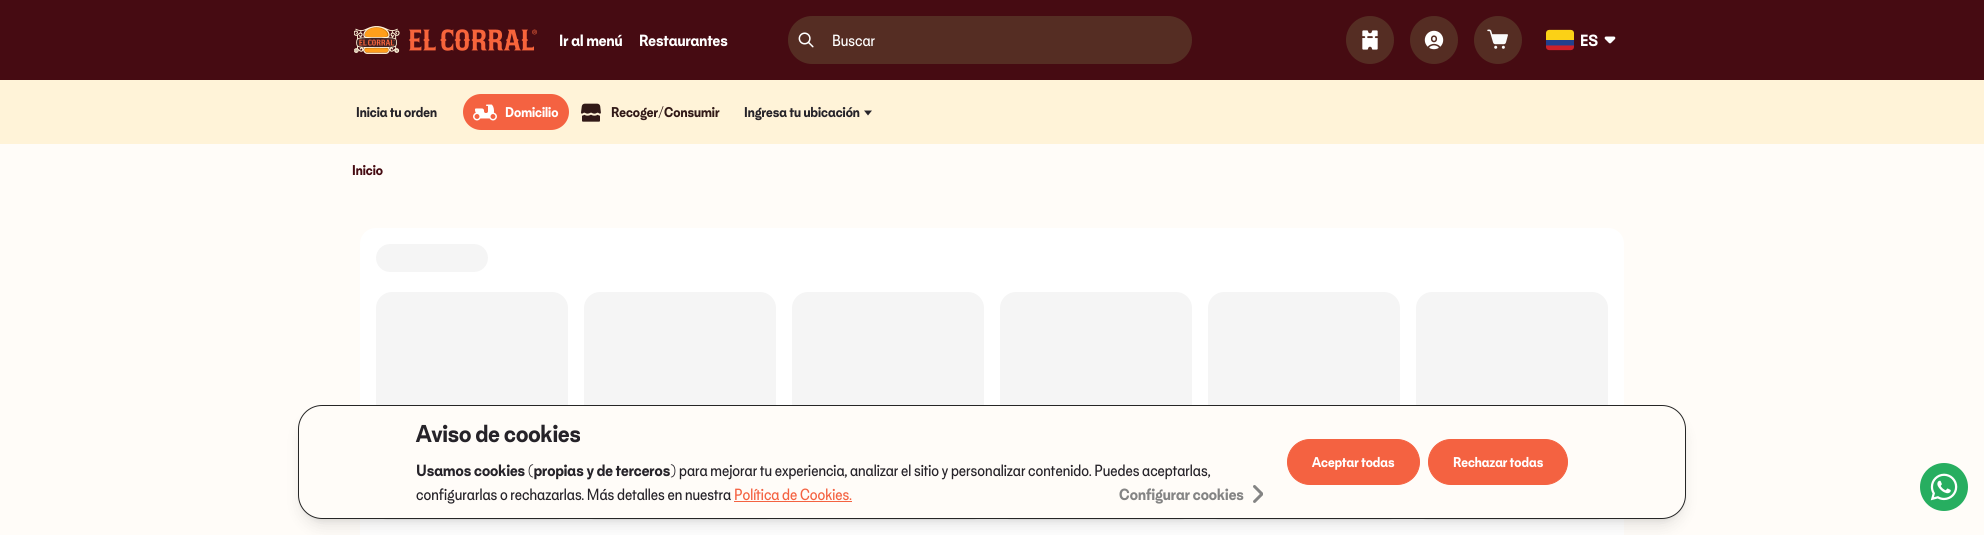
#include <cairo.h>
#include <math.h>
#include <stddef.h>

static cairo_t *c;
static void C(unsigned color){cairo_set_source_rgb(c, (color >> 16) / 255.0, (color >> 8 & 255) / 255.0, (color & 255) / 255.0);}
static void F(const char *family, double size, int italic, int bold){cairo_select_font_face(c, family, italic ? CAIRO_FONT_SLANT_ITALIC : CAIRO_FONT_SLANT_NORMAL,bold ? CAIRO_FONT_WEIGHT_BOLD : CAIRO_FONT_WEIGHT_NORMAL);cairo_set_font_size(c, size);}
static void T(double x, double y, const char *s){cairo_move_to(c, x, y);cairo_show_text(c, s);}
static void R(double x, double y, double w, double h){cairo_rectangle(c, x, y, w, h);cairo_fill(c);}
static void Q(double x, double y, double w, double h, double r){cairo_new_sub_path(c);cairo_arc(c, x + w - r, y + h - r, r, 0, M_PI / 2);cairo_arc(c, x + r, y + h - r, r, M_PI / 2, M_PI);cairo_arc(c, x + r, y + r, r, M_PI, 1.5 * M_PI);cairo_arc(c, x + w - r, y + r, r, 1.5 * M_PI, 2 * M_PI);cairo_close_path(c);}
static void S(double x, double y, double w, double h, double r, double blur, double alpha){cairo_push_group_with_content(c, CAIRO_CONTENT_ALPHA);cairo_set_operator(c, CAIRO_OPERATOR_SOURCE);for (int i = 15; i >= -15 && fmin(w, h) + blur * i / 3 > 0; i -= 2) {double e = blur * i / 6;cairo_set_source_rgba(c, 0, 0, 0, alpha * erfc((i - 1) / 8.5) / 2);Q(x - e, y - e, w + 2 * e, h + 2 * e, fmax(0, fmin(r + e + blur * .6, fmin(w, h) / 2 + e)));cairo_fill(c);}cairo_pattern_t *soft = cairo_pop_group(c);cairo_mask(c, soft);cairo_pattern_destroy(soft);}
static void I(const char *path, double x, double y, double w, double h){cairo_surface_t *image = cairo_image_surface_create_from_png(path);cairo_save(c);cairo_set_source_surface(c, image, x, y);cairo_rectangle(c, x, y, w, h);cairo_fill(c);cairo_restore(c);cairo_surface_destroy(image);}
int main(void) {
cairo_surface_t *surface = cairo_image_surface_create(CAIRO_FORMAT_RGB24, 1984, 535);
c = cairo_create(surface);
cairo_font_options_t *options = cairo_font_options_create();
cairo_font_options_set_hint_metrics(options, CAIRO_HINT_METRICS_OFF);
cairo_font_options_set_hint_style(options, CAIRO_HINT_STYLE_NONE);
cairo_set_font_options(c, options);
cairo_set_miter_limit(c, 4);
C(0xfffcf8);
cairo_paint(c);
C(0x460b12);
R(0,0,1984,80);
I("1.png",354,26,183,28);
F("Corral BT",16,0,1);
C(0xffffff);
T(559,46,"Ir al menú");
T(639,46,"Restaurantes");
C(0x552d23);
Q(788,16,404,48,24);
cairo_fill(c);
I("2.png",798,32,16,16);
F("Corral BT",16,0,0);
C(0xffffff);
T(832,46,"Buscar");
C(0x552d23);
cairo_new_path(c);
cairo_arc(c,1370,40,24,0,2 * M_PI);
cairo_fill(c);
I("3.png",1362,30,16,20);
cairo_arc(c,1434,40,24,0,2 * M_PI);
cairo_fill(c);
I("4.png",1424,30,20,20);
cairo_arc(c,1498,40,24,0,2 * M_PI);
cairo_fill(c);
I("5.png",1487,29,21,20);
I("6.png",1546,29,28,22);
F("Corral BT",16,0,1);
C(0xffffff);
T(1580,46,"ES");
I("7.png",1604,36,12,8);
C(0xfff3d8);
R(0,80,1984,64);
F("Corral BT",14,0,1);
C(0x262329);
T(356,117,"Inicia tu orden");
C(0xf46241);
Q(463,94,106,36,18);
cairo_fill(c);
I("8.png",473,104,24,17);
C(0xffffff);
T(505,117,"Domicilio");
I("9.png",581,103,20,19);
C(0x311917);
T(611,117,"Recoger/Consumir");
C(0x262329);
T(744,117,"Ingresa tu ubicación");
cairo_new_path(c);
cairo_move_to(c,864,110.5);
cairo_line_to(c,872,110.5);
cairo_line_to(c,868,115.5);
cairo_close_path(c);
cairo_fill(c);
C(0x460b12);
T(352,175,"Inicio");
C(0xffffff);
cairo_new_path(c);
cairo_move_to(c,376,228);
cairo_line_to(c,1608,228);
cairo_curve_to(c,1617,228,1624,235,1624,244);
cairo_line_to(c,1624,535);
cairo_line_to(c,360,535);
cairo_line_to(c,360,244);
cairo_curve_to(c,360,235,367,228,376,228);
cairo_close_path(c);
cairo_fill(c);
C(0xf5f5f5);
Q(376,244,112,28,14);
cairo_fill(c);
Q(376,292,192,192,16);
cairo_fill(c);
Q(376,496,192,24,12);
cairo_fill(c);
Q(584,292,192,192,16);
cairo_fill(c);
Q(584,496,192,24,12);
cairo_fill(c);
Q(792,292,192,192,16);
cairo_fill(c);
Q(792,496,192,24,12);
cairo_fill(c);
Q(1000,292,192,192,16);
cairo_fill(c);
Q(1000,496,192,24,12);
cairo_fill(c);
Q(1208,292,192,192,16);
cairo_fill(c);
Q(1208,496,192,24,12);
cairo_fill(c);
Q(1416,292,192,192,16);
cairo_fill(c);
Q(1416,496,192,24,12);
cairo_fill(c);
C(0x27ae60);
cairo_arc(c,1944,487,24,0,2 * M_PI);
cairo_fill(c);
I("10.png",1930,473,28,28);
C(0x000000);
S(302,413,1380,106,20,3,.1);
S(301,418,1382,108,21,7.5,.1);
C(0xfffcf8);
Q(298.5,405.5,1387,113,23.5);
cairo_fill_preserve(c);
C(0x262626);
cairo_set_line_width(c,1);
cairo_stroke(c);
F("Corral BT",24,0,1);
C(0x262329);
T(416,442,"Aviso de cookies");
F("Corral BT",16,0,1);
T(416,476,"Usamos cookies (propias y de terceros)");
F("Corral BT",16,0,0);
T(679,476,"para mejorar tu experiencia, analizar el sitio y personalizar contenido. Puedes aceptarlas,");
T(416,500,"configurarlas o rechazarlas. Más detalles en nuestra");
C(0xf46241);
T(734,500,"Política de Cookies.");
R(734,501,118,1);
F("Corral BT",16,0,1);
C(0x848484);
T(1119,500,"Configurar cookies");
I("11.png",1253,485,10,18);
C(0xf46241);
Q(1287.5,439.5,132,45,22.5);
cairo_fill_preserve(c);
cairo_stroke(c);
F("Corral BT",14,0,1);
C(0xffffff);
T(1312,467,"Aceptar todas");
C(0xf46241);
Q(1428.5,439.5,139,45,22.5);
cairo_fill_preserve(c);
cairo_stroke(c);
C(0xffffff);
T(1453,467,"Rechazar todas");
cairo_surface_write_to_png(surface, "o.png");
cairo_font_options_destroy(options);
cairo_destroy(c);
cairo_surface_destroy(surface);
return 0;
}
